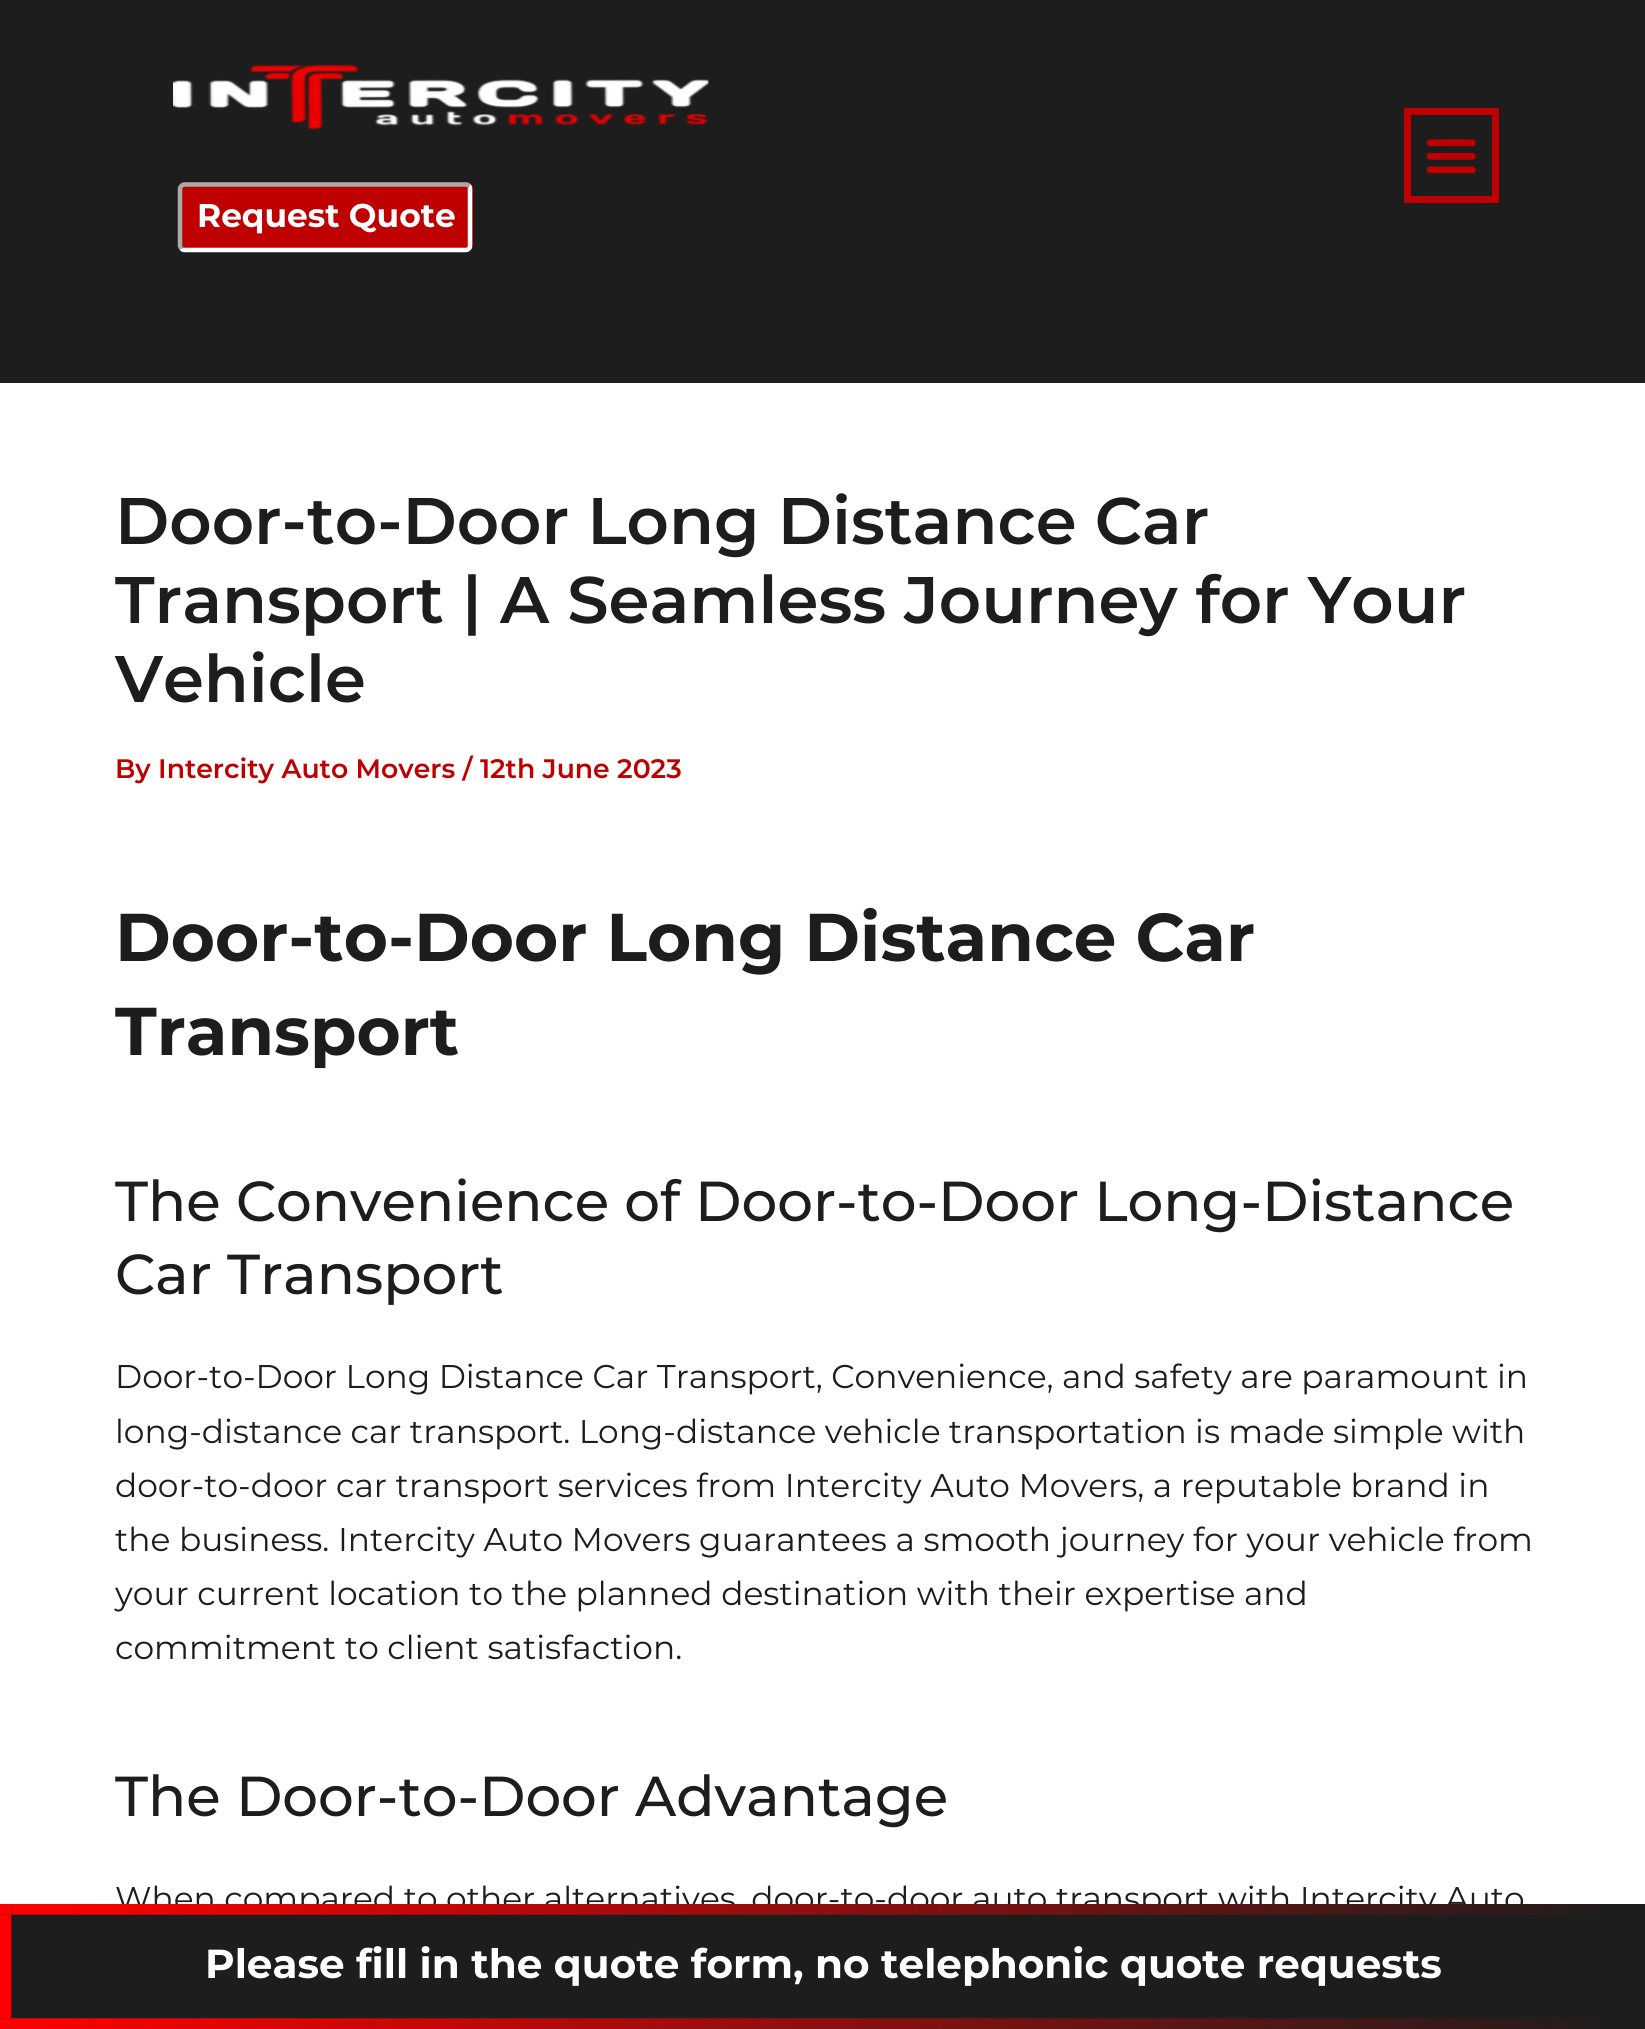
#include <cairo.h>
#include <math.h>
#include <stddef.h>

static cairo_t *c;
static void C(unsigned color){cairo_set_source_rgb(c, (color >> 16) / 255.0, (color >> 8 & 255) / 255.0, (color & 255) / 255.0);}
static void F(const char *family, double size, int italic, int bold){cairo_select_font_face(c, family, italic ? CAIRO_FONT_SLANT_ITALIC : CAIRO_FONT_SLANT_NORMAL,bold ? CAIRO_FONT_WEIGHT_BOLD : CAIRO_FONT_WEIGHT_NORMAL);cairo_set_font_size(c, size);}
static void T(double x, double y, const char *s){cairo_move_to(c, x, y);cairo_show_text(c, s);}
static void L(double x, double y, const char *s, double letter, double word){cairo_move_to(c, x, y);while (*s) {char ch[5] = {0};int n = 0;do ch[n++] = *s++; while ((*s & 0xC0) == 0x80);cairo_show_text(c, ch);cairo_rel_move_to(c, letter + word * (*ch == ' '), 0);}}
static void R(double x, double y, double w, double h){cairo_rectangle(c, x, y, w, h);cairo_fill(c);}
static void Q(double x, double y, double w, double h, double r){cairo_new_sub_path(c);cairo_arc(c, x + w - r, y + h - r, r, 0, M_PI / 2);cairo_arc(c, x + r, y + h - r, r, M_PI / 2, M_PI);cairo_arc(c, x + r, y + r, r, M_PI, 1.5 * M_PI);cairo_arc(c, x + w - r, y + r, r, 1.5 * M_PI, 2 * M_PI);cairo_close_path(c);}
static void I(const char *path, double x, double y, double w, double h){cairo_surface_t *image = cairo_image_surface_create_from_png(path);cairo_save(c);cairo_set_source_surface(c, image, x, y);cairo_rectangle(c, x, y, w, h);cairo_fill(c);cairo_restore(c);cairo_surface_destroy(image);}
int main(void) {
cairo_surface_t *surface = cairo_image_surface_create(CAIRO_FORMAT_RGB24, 1645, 2029);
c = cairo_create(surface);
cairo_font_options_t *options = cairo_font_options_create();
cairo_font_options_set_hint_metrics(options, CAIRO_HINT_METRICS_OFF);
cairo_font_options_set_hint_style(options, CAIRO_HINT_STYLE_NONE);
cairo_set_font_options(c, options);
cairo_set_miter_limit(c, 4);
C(0xffffff);
cairo_paint(c);
C(0x1d1d1d);
R(0,0,1645,383);
I("1.png",173,64,536,66);
cairo_rectangle(c,1407.5,111.5,88,88);
C(0xbe0000);
cairo_set_line_width(c,7);
cairo_stroke(c);
I("2.png",1426,139,50,35);
Q(178,182,295,70,7);
cairo_fill(c);
cairo_new_path(c);
cairo_move_to(c,469,186);
cairo_curve_to(c,470,186.5,470,188,470,189);
cairo_line_to(c,470,245);
cairo_curve_to(c,470,246.5,470,247.5,469,248.5);
cairo_curve_to(c,468,249.5,467,250,466,250);
cairo_line_to(c,184.5,250);
cairo_curve_to(c,183.5,250,182,249.5,181.5,248.5);
C(0xffffff);
cairo_set_line_width(c,4.5);
cairo_stroke(c);
cairo_new_path(c);
cairo_move_to(c,181.5,248.5);
cairo_curve_to(c,180.5,247.5,180,246.5,180,245);
cairo_line_to(c,180,189);
cairo_curve_to(c,180,188,180.5,186.5,181.5,186);
cairo_curve_to(c,182,185,183.5,184.5,184.5,184.5);
cairo_line_to(c,466,184.5);
cairo_curve_to(c,467,184.5,468,185,469,186);
C(0xaaaaaa);
cairo_stroke(c);
F("Montserrat",32.85,0,1);
C(0xffffff);
T(197,227,"Request Quote");
F("Montserrat SemiBold",65.7,0,0);
C(0x1d1d1d);
T(115,544,"Door-to-Door Long Distance Car");
T(115,623,"Transport | A Seamless Journey for Your");
T(115,702,"Vehicle");
F("Montserrat SemiBold",26.7,0,0);
C(0xbe0000);
T(115,778,"By Intercity Auto Movers / 12th June 2023");
F("Montserrat",67.5,0,1);
C(0x1d1d1d);
T(115,961,"Door-to-Door Long Distance Car");
T(115,1055,"Transport");
F("Montserrat Medium",56.25,0,0);
T(115,1221,"The Convenience of Door-to-Door Long-Distance");
T(115,1294,"Car Transport");
F("Montserrat",32.85,0,0);
L(115,1388,"Door-to-Door Long Distance Car Transport, Convenience, and safety are paramount in",0,-.1);
L(115,1443,"long-distance car transport. Long-distance vehicle transportation is made simple with",0,-.25);
T(115,1497,"door-to-door car transport services from Intercity Auto Movers, a reputable brand in");
T(115,1551,"the business. Intercity Auto Movers guarantees a smooth journey for your vehicle from");
T(115,1605,"your current location to the planned destination with their expertise and");
T(115,1659,"commitment to client satisfaction.");
F("Montserrat Medium",56.25,0,0);
T(115,1816,"The Door-to-Door Advantage");
F("Montserrat",32.85,0,0);
L(115,1910,"When compared to other alternatives, door-to-door auto transport with Intercity Auto",0,-.1);
R(0,1904,1645,125);
I("3.png",0,1904,1603,125);
F("Montserrat",40.5,0,1);
C(0xffffff);
T(205,1978,"Please fill in the quote form, no telephonic quote requests");
cairo_surface_write_to_png(surface, "o.png");
cairo_font_options_destroy(options);
cairo_destroy(c);
cairo_surface_destroy(surface);
return 0;
}
